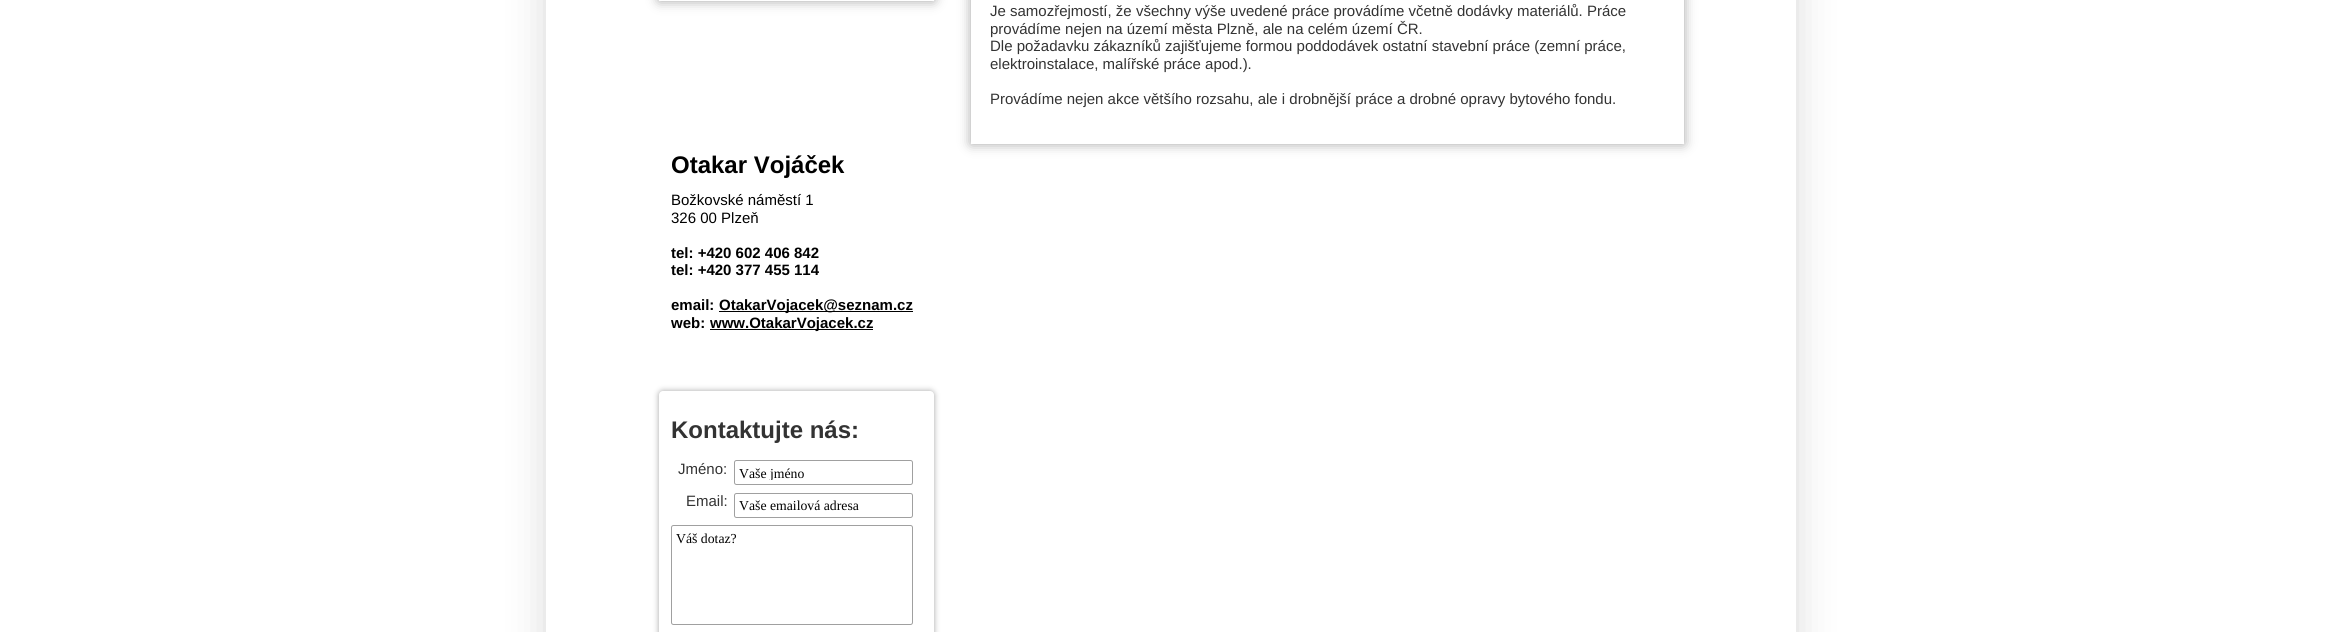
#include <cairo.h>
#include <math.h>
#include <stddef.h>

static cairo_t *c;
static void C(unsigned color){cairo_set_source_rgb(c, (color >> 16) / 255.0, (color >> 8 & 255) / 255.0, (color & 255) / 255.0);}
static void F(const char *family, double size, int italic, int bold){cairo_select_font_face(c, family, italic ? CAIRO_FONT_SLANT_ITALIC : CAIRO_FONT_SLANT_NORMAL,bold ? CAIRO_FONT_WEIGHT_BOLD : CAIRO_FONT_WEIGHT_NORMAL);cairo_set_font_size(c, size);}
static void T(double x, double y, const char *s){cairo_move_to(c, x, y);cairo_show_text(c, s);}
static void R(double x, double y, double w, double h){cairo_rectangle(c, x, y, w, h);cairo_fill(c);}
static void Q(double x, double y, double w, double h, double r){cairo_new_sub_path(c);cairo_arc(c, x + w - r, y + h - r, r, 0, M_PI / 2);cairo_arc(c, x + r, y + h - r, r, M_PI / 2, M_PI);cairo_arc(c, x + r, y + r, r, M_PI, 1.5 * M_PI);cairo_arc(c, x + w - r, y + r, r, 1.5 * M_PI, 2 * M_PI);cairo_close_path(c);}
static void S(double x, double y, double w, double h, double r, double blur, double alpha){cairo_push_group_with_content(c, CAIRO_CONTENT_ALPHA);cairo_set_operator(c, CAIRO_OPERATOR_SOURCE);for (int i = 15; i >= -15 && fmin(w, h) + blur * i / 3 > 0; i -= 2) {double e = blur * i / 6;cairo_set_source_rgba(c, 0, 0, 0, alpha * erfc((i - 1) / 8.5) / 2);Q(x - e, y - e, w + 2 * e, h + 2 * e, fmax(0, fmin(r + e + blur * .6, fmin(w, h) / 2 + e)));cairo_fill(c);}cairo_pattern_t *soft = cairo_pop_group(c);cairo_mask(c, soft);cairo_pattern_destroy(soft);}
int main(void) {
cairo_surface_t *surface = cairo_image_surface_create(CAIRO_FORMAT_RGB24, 2342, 632);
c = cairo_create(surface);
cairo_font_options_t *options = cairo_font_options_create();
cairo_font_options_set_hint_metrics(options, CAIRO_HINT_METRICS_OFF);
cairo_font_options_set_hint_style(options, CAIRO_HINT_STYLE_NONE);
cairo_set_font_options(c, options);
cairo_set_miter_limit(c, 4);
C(0xffffff);
cairo_paint(c);
cairo_save(c);
cairo_set_fill_rule(c,CAIRO_FILL_RULE_EVEN_ODD);
cairo_new_path(c);
cairo_move_to(c,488,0);
cairo_line_to(c,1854,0);
cairo_line_to(c,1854,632);
cairo_line_to(c,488,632);
cairo_close_path(c);
cairo_move_to(c,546,-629);
cairo_line_to(c,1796,-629);
cairo_line_to(c,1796,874);
cairo_line_to(c,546,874);
cairo_close_path(c);
cairo_clip(c);
C(0xd8d8d8);
S(546,-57,1250,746,0,19,1);
cairo_restore(c);
C(0xa5a5a5);
S(971,-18,713,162,0,6,1);
C(0xffffff);
R(971,0,713,144);
F("Liberation Sans",15,0,0);
C(0x333333);
T(990,16,"Je samozřejmostí, že všechny výše uvedené práce provádíme včetně dodávky materiálů. Práce");
T(990,34,"provádíme nejen na území města Plzně, ale na celém území ČR.");
T(990,51,"Dle požadavku zákazníků zajišťujeme formou poddodávek ostatní stavební práce (zemní práce,");
T(990,69,"elektroinstalace, malířské práce apod.).");
T(990,104,"Provádíme nejen akce většího rozsahu, ale i drobnější práce a drobné opravy bytového fondu.");
C(0xa5a5a5);
S(659,-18,275,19,0,6,1);
C(0xffffff);
R(659,0,275,1);
F("Liberation Sans",24,0,1);
C(0x000000);
T(671,173,"Otakar Vojáček");
F("Liberation Sans",15,0,0);
T(671,205,"Božkovské náměstí 1");
T(671,223,"326 00 Plzeň");
F("Liberation Sans",15,0,1);
T(671,258,"tel: +420 602 406 842");
T(671,275,"tel: +420 377 455 114");
T(671,310,"email:");
R(719,311,194,1);
T(719,310,"OtakarVojacek@seznam.cz");
T(671,328,"web:");
R(710,329,163,1);
T(710,328,"www.OtakarVojacek.cz");
C(0xa5a5a5);
S(659,391,275,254,4,3,1);
C(0xffffff);
Q(659,391,275,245,4);
cairo_fill(c);
F("Liberation Sans",24,0,1);
C(0x333333);
T(671,438,"Kontaktujte nás:");
F("Liberation Sans",15,0,0);
T(678,474,"Jméno:");
Q(734.5,460.5,178,24,2);
C(0xa0a0a0);
cairo_set_line_width(c,1);
cairo_stroke(c);
cairo_save(c);
cairo_rectangle(c,739,465,169,15);
cairo_clip(c);
F("Liberation Serif",13.75,0,0);
C(0x000000);
T(739,478,"Vaše jméno");
cairo_restore(c);
C(0x333333);
T(686,506,"Email:");
Q(734.5,493.5,178,24,2);
C(0xa0a0a0);
cairo_stroke(c);
F("Liberation Serif",13.75,0,0);
C(0x000000);
T(739,510,"Vaše emailová adresa");
Q(671.5,525.5,241,99,2);
C(0xa0a0a0);
cairo_stroke(c);
C(0x000000);
T(676,543,"Váš dotaz?");
cairo_surface_write_to_png(surface, "o.png");
cairo_font_options_destroy(options);
cairo_destroy(c);
cairo_surface_destroy(surface);
return 0;
}
